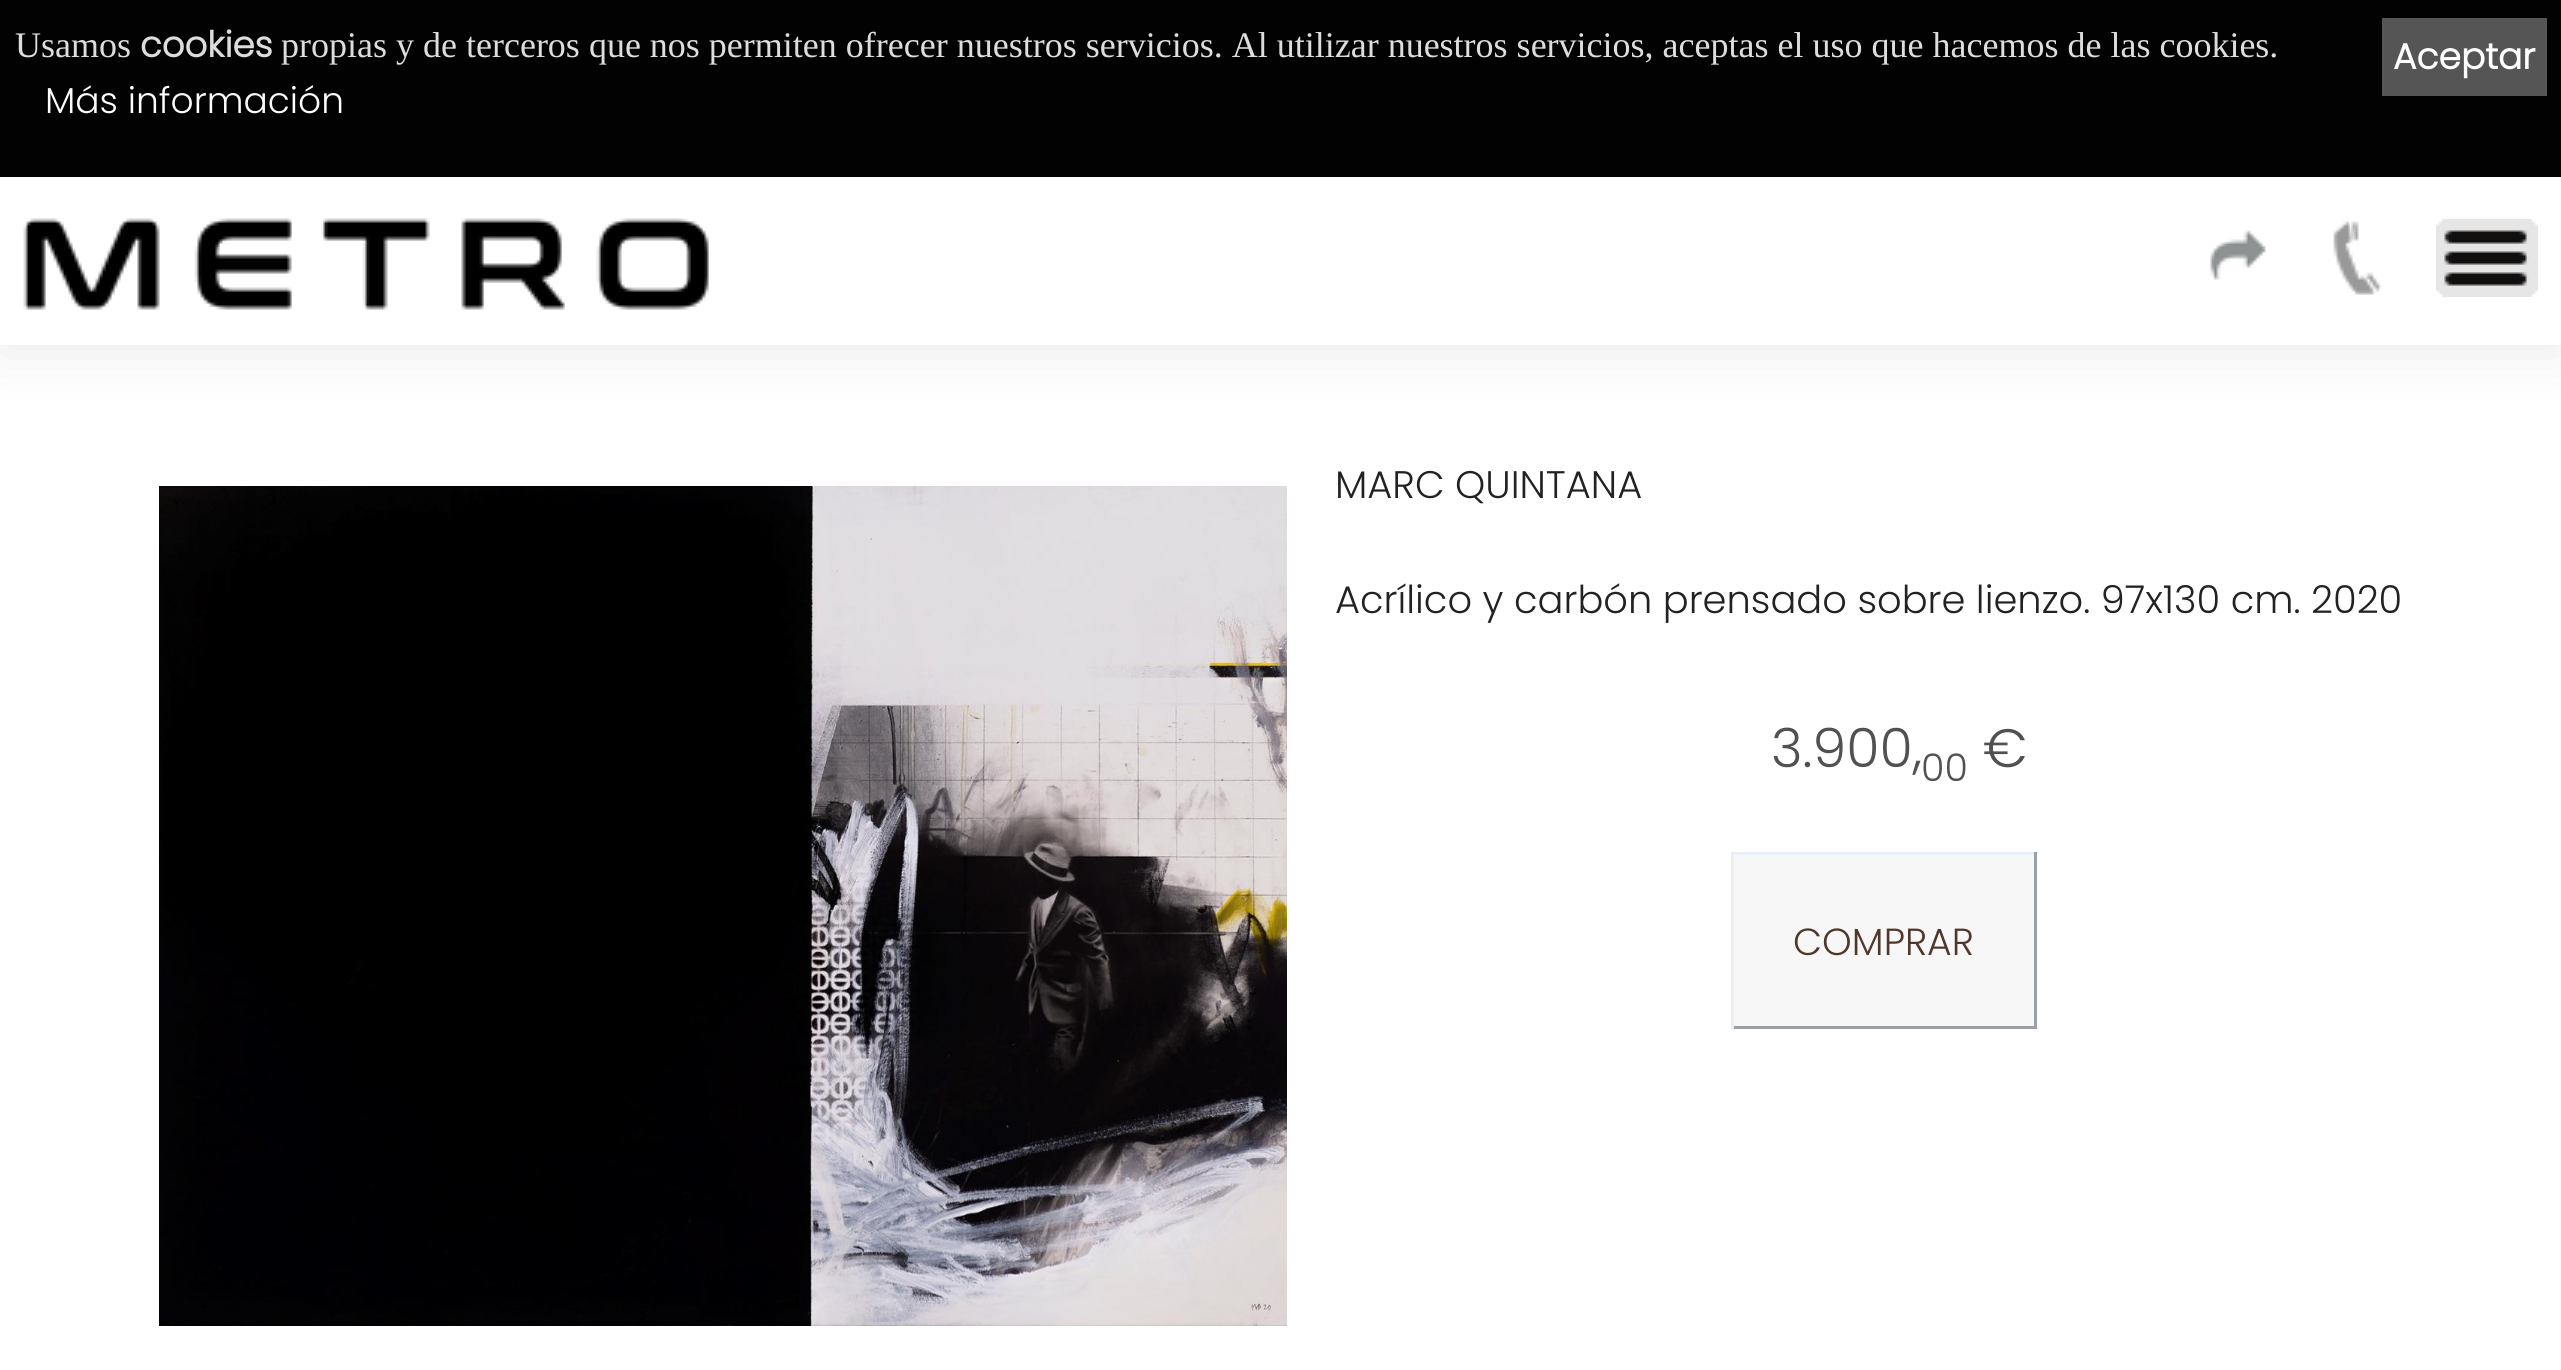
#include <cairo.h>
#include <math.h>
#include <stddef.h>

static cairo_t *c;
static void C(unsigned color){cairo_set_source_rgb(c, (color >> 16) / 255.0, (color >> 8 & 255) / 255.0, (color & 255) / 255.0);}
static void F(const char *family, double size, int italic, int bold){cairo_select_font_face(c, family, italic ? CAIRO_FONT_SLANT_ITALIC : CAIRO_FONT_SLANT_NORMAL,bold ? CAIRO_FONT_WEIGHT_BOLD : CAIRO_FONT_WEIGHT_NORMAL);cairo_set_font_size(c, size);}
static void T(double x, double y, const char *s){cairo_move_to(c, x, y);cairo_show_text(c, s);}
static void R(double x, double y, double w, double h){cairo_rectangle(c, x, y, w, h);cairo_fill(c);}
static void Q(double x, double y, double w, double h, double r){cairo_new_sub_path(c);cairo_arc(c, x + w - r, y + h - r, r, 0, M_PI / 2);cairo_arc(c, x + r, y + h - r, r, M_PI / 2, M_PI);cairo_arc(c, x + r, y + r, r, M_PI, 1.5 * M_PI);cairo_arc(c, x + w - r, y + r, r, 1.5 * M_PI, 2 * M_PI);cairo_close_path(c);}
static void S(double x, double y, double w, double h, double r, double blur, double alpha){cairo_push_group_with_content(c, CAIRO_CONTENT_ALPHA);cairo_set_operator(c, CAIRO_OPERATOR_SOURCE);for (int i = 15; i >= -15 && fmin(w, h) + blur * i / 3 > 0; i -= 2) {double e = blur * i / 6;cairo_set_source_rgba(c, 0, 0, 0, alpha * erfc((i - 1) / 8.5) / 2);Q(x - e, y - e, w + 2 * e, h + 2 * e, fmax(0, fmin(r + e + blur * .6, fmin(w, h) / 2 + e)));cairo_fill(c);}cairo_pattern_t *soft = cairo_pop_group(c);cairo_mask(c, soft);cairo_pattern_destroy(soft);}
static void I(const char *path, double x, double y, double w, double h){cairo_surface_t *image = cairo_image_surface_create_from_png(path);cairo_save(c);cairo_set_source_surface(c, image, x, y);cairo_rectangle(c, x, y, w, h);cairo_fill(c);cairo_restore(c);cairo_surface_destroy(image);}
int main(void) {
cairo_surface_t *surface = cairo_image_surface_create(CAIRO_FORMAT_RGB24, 2561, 1370);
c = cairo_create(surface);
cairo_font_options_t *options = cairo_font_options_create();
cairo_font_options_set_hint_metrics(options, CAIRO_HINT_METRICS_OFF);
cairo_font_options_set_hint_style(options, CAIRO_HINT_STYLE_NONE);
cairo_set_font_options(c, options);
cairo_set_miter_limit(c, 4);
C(0xffffff);
cairo_paint(c);
cairo_save(c);
cairo_set_fill_rule(c,CAIRO_FILL_RULE_EVEN_ODD);
cairo_new_path(c);
cairo_move_to(c,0,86);
cairo_line_to(c,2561,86);
cairo_line_to(c,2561,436);
cairo_line_to(c,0,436);
cairo_close_path(c);
cairo_move_to(c,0,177);
cairo_line_to(c,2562,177);
cairo_line_to(c,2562,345);
cairo_line_to(c,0,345);
cairo_close_path(c);
cairo_clip(c);
C(0x000000);
S(0,177,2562,168,0,30,.1);
cairo_restore(c);
cairo_set_source_rgba(c,0,0,0,0.99);
R(0,0,2561,177);
F("Liberation Serif",36,0,0);
C(0xdddddd);
T(15,57,"Usamos");
F("Poppins",35.5,0,1);
T(140,57,"cookies");
F("Liberation Serif",36,0,0);
T(281,57,"propias y de terceros que nos permiten ofrecer nuestros servicios. Al utilizar nuestros servicios, aceptas el uso que hacemos de las cookies.");
C(0x555555);
R(2382,18,165,78);
F("Poppins",36,0,1);
C(0xffffff);
T(2393,69,"Aceptar");
F("Poppins Light",36,0,0);
T(45,113,"Más información");
I("1.png",23,218,686,92);
I("2.png",2210,230,56,50);
I("3.png",2333,221,49,74);
I("4.png",2436,219,102,78);
I("5.png",159,486,1128,840);
F("Poppins Light",38.4,0,0);
C(0x222222);
T(1335,498,"MARC QUINTANA");
T(1335,613,"Acrílico y carbón prensado sobre lienzo. 97x130 cm. 2020");
F("Poppins Light",54,0,0);
C(0x525050);
T(1771,767,"3.900,");
F("Poppins Light",38,0,0);
T(1921,781,"00");
F("Poppins Light",54,0,0);
T(1983,767,"€");
C(0xf7f7f7);
R(1734,855,300,171);
F("Poppins Light",37.75,0,0);
C(0x4f372b);
T(1793,955,"COMPRAR");
C(0xe9eefa);
R(1731,852,306,3);
C(0x9b9fa7);
R(2034,852,3,177);
R(1731,1026,306,3);
C(0xe9eefa);
R(1731,852,3,177);
cairo_surface_write_to_png(surface, "o.png");
cairo_font_options_destroy(options);
cairo_destroy(c);
cairo_surface_destroy(surface);
return 0;
}
